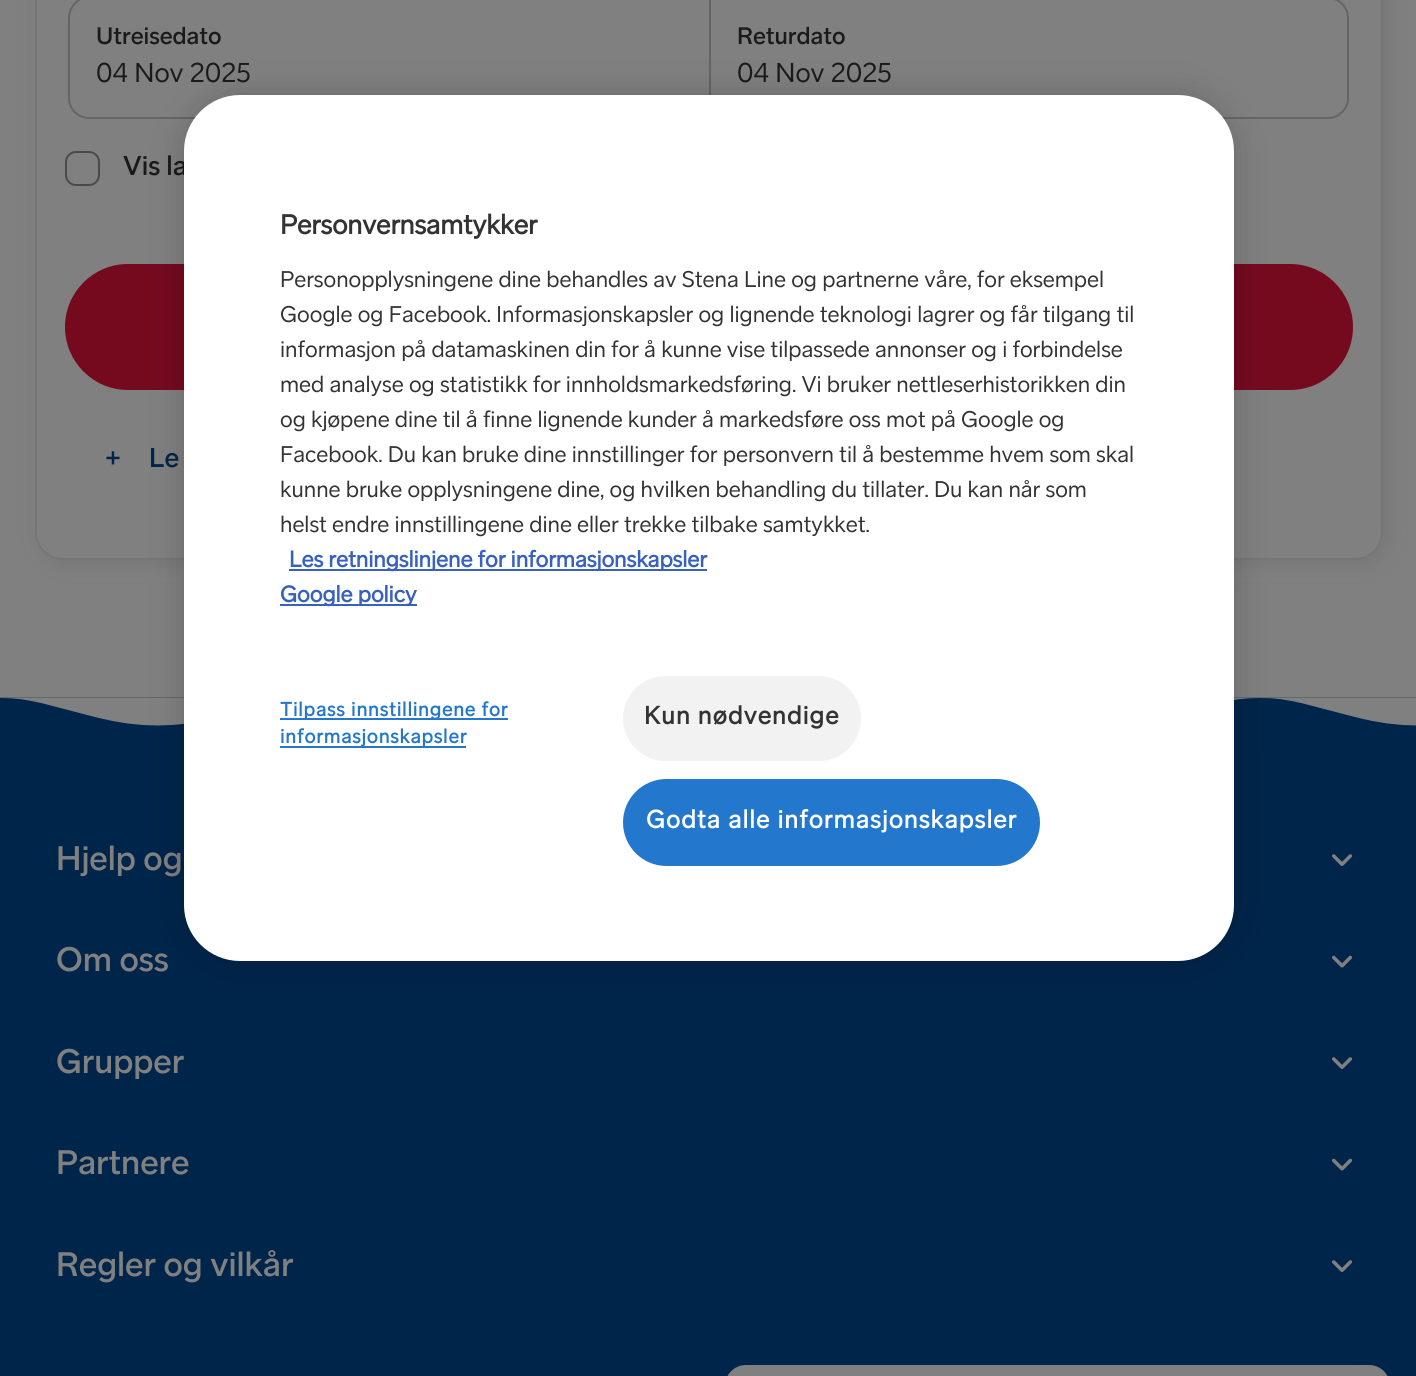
#include <cairo.h>
#include <math.h>
#include <stddef.h>

static cairo_t *c;
static void C(unsigned color){cairo_set_source_rgb(c, (color >> 16) / 255.0, (color >> 8 & 255) / 255.0, (color & 255) / 255.0);}
static void F(const char *family, double size, int italic, int bold){cairo_select_font_face(c, family, italic ? CAIRO_FONT_SLANT_ITALIC : CAIRO_FONT_SLANT_NORMAL,bold ? CAIRO_FONT_WEIGHT_BOLD : CAIRO_FONT_WEIGHT_NORMAL);cairo_set_font_size(c, size);}
static void T(double x, double y, const char *s){cairo_move_to(c, x, y);cairo_show_text(c, s);}
static void L(double x, double y, const char *s, double letter, double word){cairo_move_to(c, x, y);while (*s) {char ch[5] = {0};int n = 0;do ch[n++] = *s++; while ((*s & 0xC0) == 0x80);cairo_show_text(c, ch);cairo_rel_move_to(c, letter + word * (*ch == ' '), 0);}}
static void R(double x, double y, double w, double h){cairo_rectangle(c, x, y, w, h);cairo_fill(c);}
static void Q(double x, double y, double w, double h, double r){cairo_new_sub_path(c);cairo_arc(c, x + w - r, y + h - r, r, 0, M_PI / 2);cairo_arc(c, x + r, y + h - r, r, M_PI / 2, M_PI);cairo_arc(c, x + r, y + r, r, M_PI, 1.5 * M_PI);cairo_arc(c, x + w - r, y + r, r, 1.5 * M_PI, 2 * M_PI);cairo_close_path(c);}
static void S(double x, double y, double w, double h, double r, double blur, double alpha){cairo_push_group_with_content(c, CAIRO_CONTENT_ALPHA);cairo_set_operator(c, CAIRO_OPERATOR_SOURCE);for (int i = 15; i >= -15 && fmin(w, h) + blur * i / 3 > 0; i -= 2) {double e = blur * i / 6;cairo_set_source_rgba(c, 0, 0, 0, alpha * erfc((i - 1) / 8.5) / 2);Q(x - e, y - e, w + 2 * e, h + 2 * e, fmax(0, fmin(r + e + blur * .6, fmin(w, h) / 2 + e)));cairo_fill(c);}cairo_pattern_t *soft = cairo_pop_group(c);cairo_mask(c, soft);cairo_pattern_destroy(soft);}
static void I(const char *path, double x, double y, double w, double h){cairo_surface_t *image = cairo_image_surface_create_from_png(path);cairo_save(c);cairo_set_source_surface(c, image, x, y);cairo_rectangle(c, x, y, w, h);cairo_fill(c);cairo_restore(c);cairo_surface_destroy(image);}
int main(void) {
cairo_surface_t *surface = cairo_image_surface_create(CAIRO_FORMAT_RGB24, 1416, 1376);
c = cairo_create(surface);
cairo_font_options_t *options = cairo_font_options_create();
cairo_font_options_set_hint_metrics(options, CAIRO_HINT_METRICS_OFF);
cairo_font_options_set_hint_style(options, CAIRO_HINT_STYLE_NONE);
cairo_set_font_options(c, options);
cairo_set_miter_limit(c, 4);
C(0x808080);
cairo_paint(c);
C(0x767676);
S(40,-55,1348,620,28,9,1);
C(0x808080);
Q(36,-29,1346,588,27);
cairo_fill_preserve(c);
C(0x767676);
cairo_stroke(c);
F("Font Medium",24.5,0,0);
C(0x1a1a1a);
T(96,44,"Utreisedato");
C(0x656565);
cairo_set_fill_rule(c,CAIRO_FILL_RULE_EVEN_ODD);
cairo_new_path(c);
cairo_move_to(c,89,-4);
cairo_line_to(c,709,-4);
cairo_line_to(c,709,119);
cairo_line_to(c,89,119);
cairo_curve_to(c,78,119,68,110,68,98);
cairo_line_to(c,68,18);
cairo_curve_to(c,68,6,78,-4,89,-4);
cairo_close_path(c);
cairo_move_to(c,89,-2);
cairo_line_to(c,709,-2);
cairo_line_to(c,709,117);
cairo_line_to(c,89,117);
cairo_curve_to(c,79,117,70,109,70,98);
cairo_line_to(c,70,18);
cairo_curve_to(c,70,7,79,-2,89,-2);
cairo_close_path(c);
cairo_fill(c);
F("Font",28,0,0);
C(0x1a1a1a);
T(96,82,"04 Nov 2025");
F("Font Medium",24.5,0,0);
T(737,44,"Returdato");
cairo_new_path(c);
cairo_move_to(c,710,-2);
cairo_line_to(c,1328,-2);
cairo_curve_to(c,1339,-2,1348,7,1348,18);
cairo_line_to(c,1348,98);
cairo_curve_to(c,1348,109,1339,118,1328,118);
cairo_line_to(c,710,118);
cairo_close_path(c);
C(0x656565);
cairo_stroke(c);
F("Font",28,0,0);
C(0x1a1a1a);
T(737,82,"04 Nov 2025");
Q(66,152,33,33,10);
C(0x4a4a4a);
cairo_stroke(c);
F("Font Medium",28,0,0);
C(0x1a1a1a);
T(123,175,"Vis la");
C(0x750a1f);
Q(65,264,1288,126,63);
cairo_fill(c);
C(0x00254a);
T(105,467,"+");
T(149,467,"Le");
R(0,753,1416,623);
I("1.png",0,697,1416,56);
F("Font Medium",35,0,0);
C(0x808080);
T(56,870,"Hjelp og");
I("2.png",1332,854,21,12);
T(56,971,"Om oss");
I("3.png",1332,955,21,13);
T(56,1073,"Grupper");
I("2.png",1332,1057,21,12);
T(56,1174,"Partnere");
I("3.png",1332,1158,21,13);
T(56,1276,"Regler og vilkår");
I("2.png",1332,1260,21,12);
Q(725,1365,665,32,21);
cairo_fill(c);
C(0x000000);
S(184,95,1050,866,56,16,.2);
C(0xffffff);
Q(184,95,1050,866,56);
cairo_fill(c);
F("Font",28,0,1);
C(0x333333);
T(280,234,"Personvernsamtykker");
F("Font",23.35,0,0);
T(280,287,"Personopplysningene dine behandles av Stena Line og partnerne våre, for eksempel");
T(280,322,"Google og Facebook. Informasjonskapsler og lignende teknologi lagrer og får tilgang til");
T(280,357,"informasjon på datamaskinen din for å kunne vise tilpassede annonser og i forbindelse");
T(280,392,"med analyse og statistikk for innholdsmarkedsføring. Vi bruker nettleserhistorikken din");
T(280,427,"og kjøpene dine til å finne lignende kunder å markedsføre oss mot på Google og");
T(280,462,"Facebook. Du kan bruke dine innstillinger for personvern til å bestemme hvem som skal");
T(280,497,"kunne bruke opplysningene dine, og hvilken behandling du tillater. Du kan når som");
T(280,532,"helst endre innstillingene dine eller trekke tilbake samtykket.");
C(0x3860be);
R(289,569,418,2);
F("Font",23.35,0,1);
T(289,567,"Les retningslinjene for informasjonskapsler");
R(280,604,137,2);
T(280,602,"Google policy");
C(0x2378cd);
R(280,718,228,2);
F("Font",20,0,1);
L(280,716,"Tilpass innstillingene for",1,0);
R(280,746,186,2);
L(280,743,"informasjonskapsler",1,0);
C(0xf2f2f2);
Q(623,676,238,85,42.5);
cairo_fill(c);
F("Font",25.7,0,1);
C(0x333333);
L(644,724,"Kun nødvendige",1.25,0);
C(0x2378cd);
Q(624,780,415,85,42.5);
cairo_fill_preserve(c);
cairo_stroke(c);
C(0xffffff);
L(646,828,"Godta alle informasjonskapsler",1.25,0);
cairo_surface_write_to_png(surface, "o.png");
cairo_font_options_destroy(options);
cairo_destroy(c);
cairo_surface_destroy(surface);
return 0;
}
